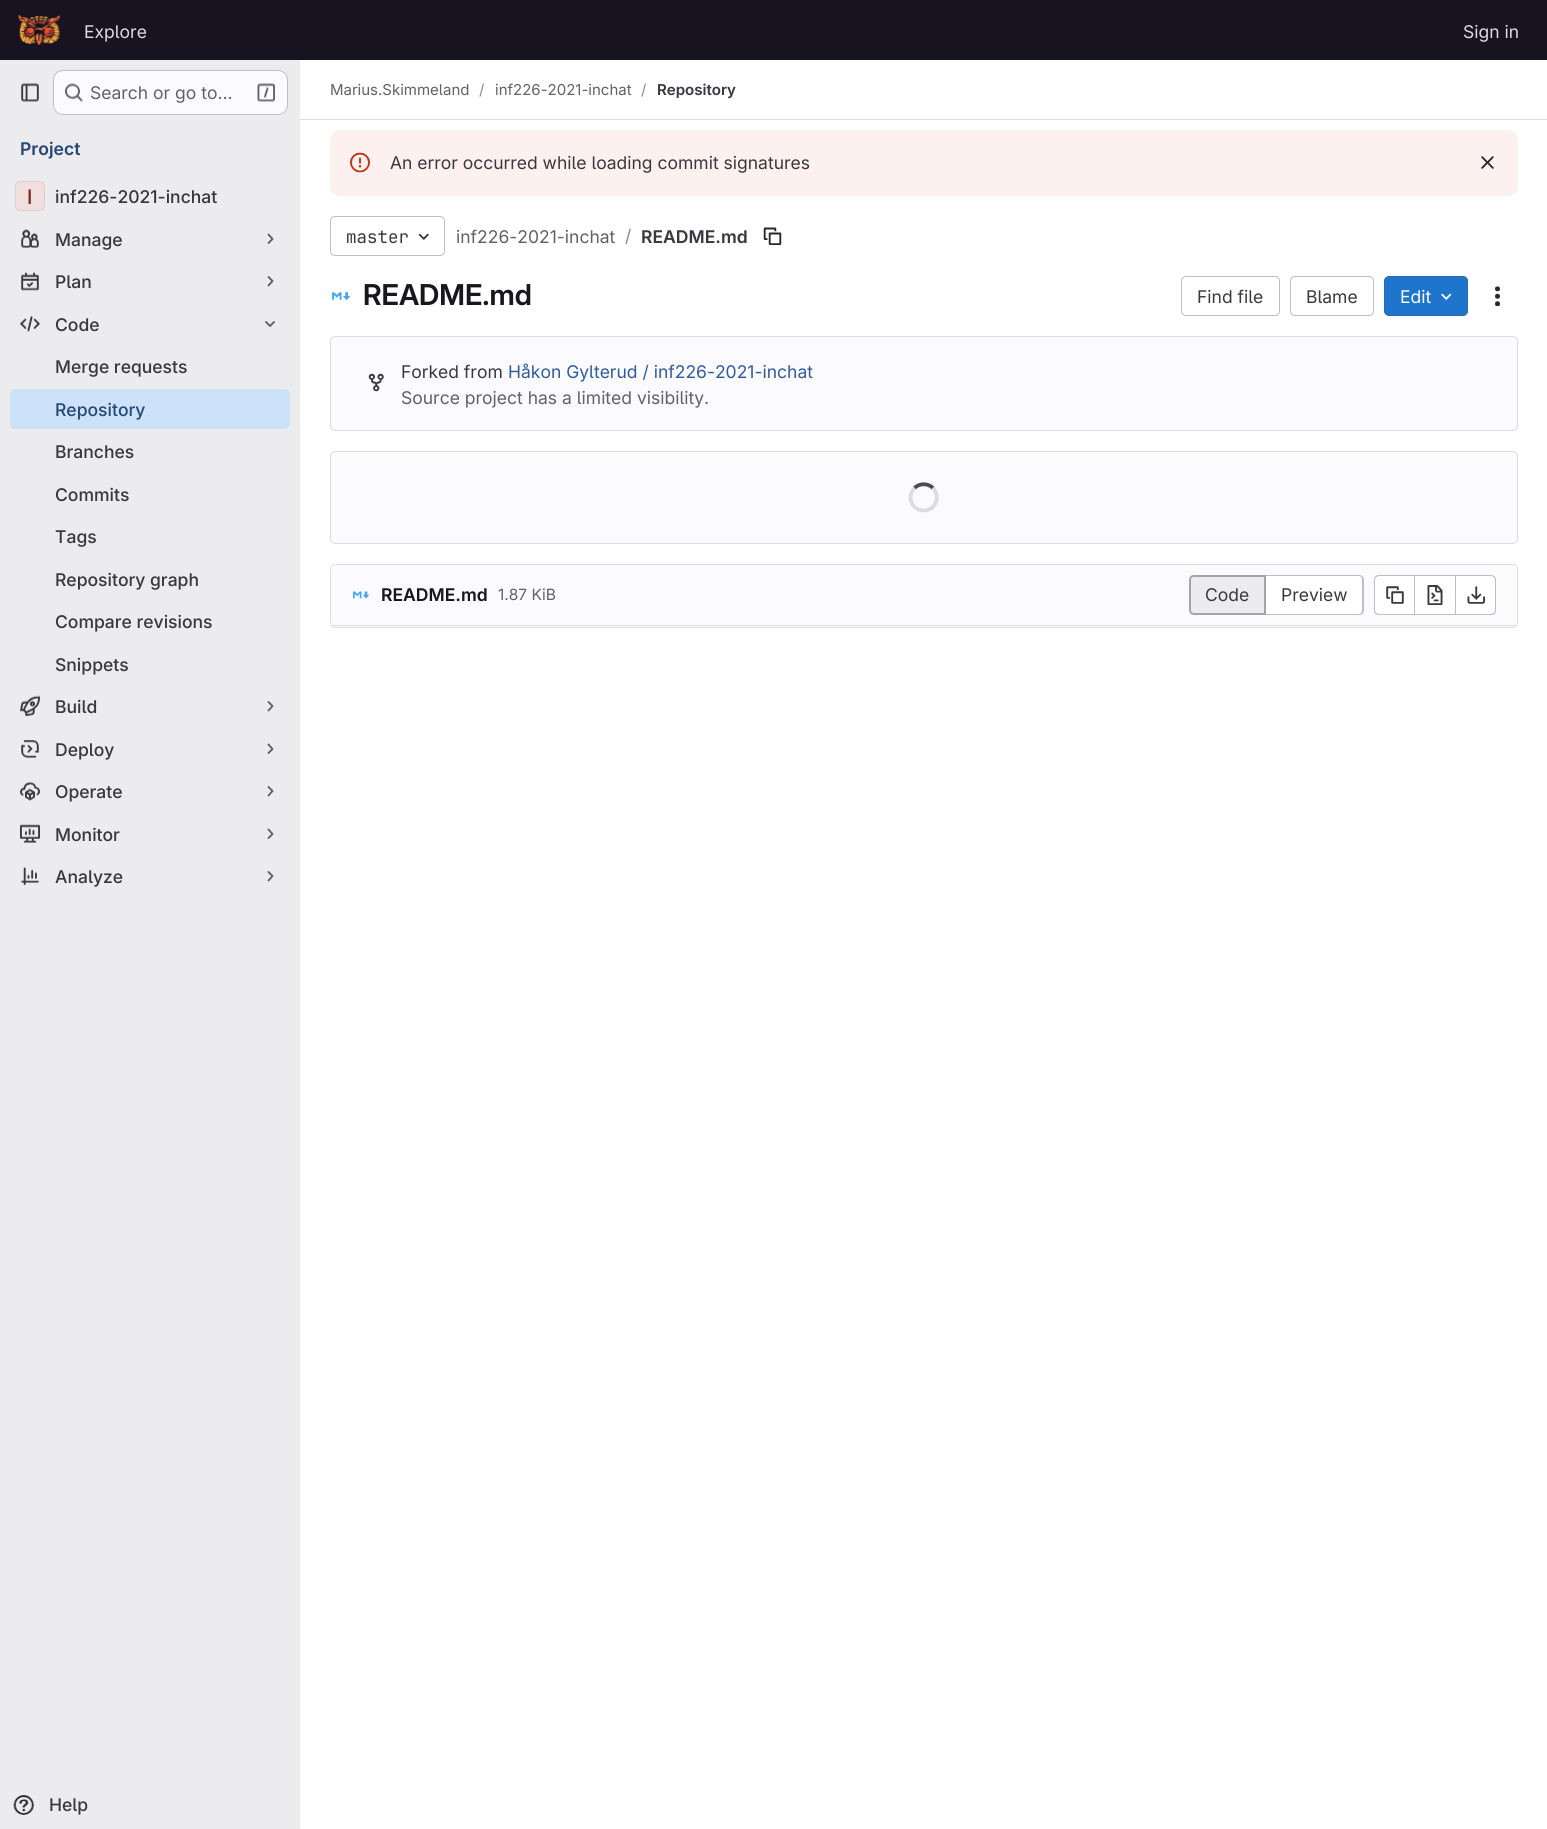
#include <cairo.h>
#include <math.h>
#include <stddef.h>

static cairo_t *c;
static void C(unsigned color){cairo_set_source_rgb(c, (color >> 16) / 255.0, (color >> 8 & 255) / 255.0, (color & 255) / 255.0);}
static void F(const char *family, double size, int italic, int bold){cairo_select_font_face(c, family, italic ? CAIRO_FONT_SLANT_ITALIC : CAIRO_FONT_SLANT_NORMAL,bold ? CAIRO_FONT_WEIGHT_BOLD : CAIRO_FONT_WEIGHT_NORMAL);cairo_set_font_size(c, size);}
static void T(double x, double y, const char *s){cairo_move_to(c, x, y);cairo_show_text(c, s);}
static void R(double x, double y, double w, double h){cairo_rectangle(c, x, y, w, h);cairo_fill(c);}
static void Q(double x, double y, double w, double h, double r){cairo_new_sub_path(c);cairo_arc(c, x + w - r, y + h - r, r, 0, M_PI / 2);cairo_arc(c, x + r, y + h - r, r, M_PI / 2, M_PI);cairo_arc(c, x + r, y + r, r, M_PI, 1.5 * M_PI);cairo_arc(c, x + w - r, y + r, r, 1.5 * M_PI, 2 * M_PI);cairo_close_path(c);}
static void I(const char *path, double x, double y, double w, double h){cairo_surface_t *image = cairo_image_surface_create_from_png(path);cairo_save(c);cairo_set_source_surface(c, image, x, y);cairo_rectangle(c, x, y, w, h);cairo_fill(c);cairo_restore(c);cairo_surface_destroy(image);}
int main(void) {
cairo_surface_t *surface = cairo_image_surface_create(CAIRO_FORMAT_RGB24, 1547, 1829);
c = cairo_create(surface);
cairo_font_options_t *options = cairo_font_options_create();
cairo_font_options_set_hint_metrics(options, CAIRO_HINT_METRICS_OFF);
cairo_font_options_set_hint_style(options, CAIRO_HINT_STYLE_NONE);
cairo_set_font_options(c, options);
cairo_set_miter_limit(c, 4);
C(0xffffff);
cairo_paint(c);
C(0x171321);
R(0,0,1547,60);
I("1.png",18,15,42,30);
F("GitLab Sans",17.5,0,0);
C(0xdcdcde);
T(84,38,"Explore");
T(1463,38,"Sign in");
C(0xececef);
R(0,60,300,1769);
I("2.png",21,83,18,19);
C(0xfbfafd);
Q(53,70,235,45,10);
cairo_fill(c);
Q(53.5,70.5,234,44,9.5);
cairo_set_source_rgba(c,0.02,0.02,0.024,0.24);
cairo_set_line_width(c,1);
cairo_stroke(c);
I("3.png",65,83,18,19);
C(0x626168);
T(90,99,"Search or go to…");
I("4.png",257,83,18,19);
F("GitLab Sans SemiBold",17.5,0,0);
C(0x284779);
T(20,155,"Project");
C(0xf0dfde);
Q(15,181,30,30,5);
cairo_fill(c);
Q(15.5,181.5,29,29,4.5);
cairo_set_source_rgba(c,0.02,0.02,0.024,0.08);
cairo_stroke(c);
F("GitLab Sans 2 Medium",20,0,0);
C(0x812713);
T(27,204,"I");
F("GitLab Sans Medium",17.5,0,0);
C(0x3a383f);
T(55,203,"inf226-2021-inchat");
I("5.png",21,229,18,19);
T(55,246,"Manage");
cairo_new_path(c);
cairo_move_to(c,268.5,234.5);
cairo_line_to(c,272.5,239);
cairo_line_to(c,268.5,243);
C(0x626168);
cairo_set_line_width(c,1.9);
cairo_set_line_cap(c,CAIRO_LINE_CAP_ROUND);
cairo_set_line_join(c,CAIRO_LINE_JOIN_ROUND);
cairo_stroke(c);
I("6.png",21,271,18,20);
C(0x3a383f);
T(55,288,"Plan");
cairo_new_path(c);
cairo_move_to(c,268.5,277);
cairo_line_to(c,272.5,281);
cairo_line_to(c,268.5,285.5);
C(0x626168);
cairo_stroke(c);
I("7.png",20,315,20,17);
C(0x3a383f);
T(55,331,"Code");
cairo_new_path(c);
cairo_move_to(c,274,322);
cairo_line_to(c,270,326);
cairo_line_to(c,266,322);
C(0x626168);
cairo_stroke(c);
C(0x3a383f);
T(55,373,"Merge requests");
C(0xcbe2f9);
Q(10,389,280,40,5);
cairo_fill(c);
C(0x284779);
T(55,416,"Repository");
C(0x3a383f);
T(55,458,"Branches");
T(55,501,"Commits");
T(55,543,"Tags");
T(55,586,"Repository graph");
T(55,628,"Compare revisions");
T(55,671,"Snippets");
I("8.png",20,695,20,22);
T(55,713,"Build");
cairo_new_path(c);
cairo_move_to(c,268.5,702);
cairo_line_to(c,272.5,706);
cairo_line_to(c,268.5,710.5);
C(0x626168);
cairo_stroke(c);
I("9.png",21,740,18,18);
C(0x3a383f);
T(55,756,"Deploy");
cairo_new_path(c);
cairo_move_to(c,268.5,744.5);
cairo_line_to(c,272.5,749);
cairo_line_to(c,268.5,753);
C(0x626168);
cairo_stroke(c);
I("10.png",20,781,20,20);
C(0x3a383f);
T(55,798,"Operate");
cairo_new_path(c);
cairo_move_to(c,268.5,787);
cairo_line_to(c,272.5,791);
cairo_line_to(c,268.5,795.5);
C(0x626168);
cairo_stroke(c);
I("11.png",20,824,20,19);
C(0x3a383f);
T(55,841,"Monitor");
cairo_new_path(c);
cairo_move_to(c,268.5,829.5);
cairo_line_to(c,272.5,834);
cairo_line_to(c,268.5,838);
C(0x626168);
cairo_stroke(c);
I("12.png",21,866,18,20);
C(0x3a383f);
T(55,883,"Analyze");
cairo_new_path(c);
cairo_move_to(c,268.5,872);
cairo_line_to(c,272.5,876);
cairo_line_to(c,268.5,880.5);
C(0x626168);
cairo_stroke(c);
I("13.png",13,1795,21,20);
C(0x3a383f);
T(49,1811,"Help");
C(0xdcdcde);
R(300,119,1247,1);
F("GitLab Sans",15,0,0);
C(0x626168);
T(330,95,"Marius.Skimmeland");
C(0x89888d);
T(479,95,"/");
C(0x626168);
T(495,95,"inf226-2021-inchat");
C(0x89888d);
T(641,95,"/");
F("GitLab Sans SemiBold",15,0,0);
C(0x3a383f);
T(657,95,"Repository");
C(0xfcf1ef);
Q(330,130,1188,66,10);
cairo_fill(c);
I("14.png",350,152,20,21);
F("GitLab Sans",17.5,0,0);
C(0x3a383f);
T(390,169,"An error occurred while loading commit signatures");
I("15.png",1481,156,13,13);
Q(330.5,216.5,114,39,4.5);
C(0xbfbfc3);
cairo_set_line_width(c,1);
cairo_set_line_cap(c,CAIRO_LINE_CAP_BUTT);
cairo_set_line_join(c,CAIRO_LINE_JOIN_MITER);
cairo_stroke(c);
F("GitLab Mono",17.5,0,0);
C(0x3a383f);
T(346,243,"master");
I("16.png",418,233,11,7);
F("GitLab Sans",17.5,0,0);
C(0x626168);
T(456,243,"inf226-2021-inchat");
C(0x89888d);
T(625,242,"/");
F("GitLab Sans SemiBold",17.5,0,0);
C(0x3a383f);
T(641,243,"README.md");
I("17.png",763,227,19,18);
I("18.png",332,292,19,9);
F("GitLab Sans 2 SemiBold",28.75,0,0);
C(0x18171d);
T(363,305,"README.md");
Q(1181.5,276.5,98,39,4.5);
C(0xbfbfc3);
cairo_stroke(c);
F("GitLab Sans",17.5,0,0);
C(0x3a383f);
T(1197,303,"Find file");
Q(1290.5,276.5,83,39,4.5);
C(0xbfbfc3);
cairo_stroke(c);
C(0x3a383f);
T(1306,303,"Blame");
C(0x1f75cb);
Q(1384.5,276.5,83,39,4.5);
cairo_fill_preserve(c);
C(0x2f68b4);
cairo_stroke(c);
C(0xffffff);
T(1400,303,"Edit");
I("19.png",1441,293,11,7);
I("20.png",1495,286,5,21);
C(0xfbfafd);
Q(330.5,336.5,1187,94,4.5);
cairo_fill_preserve(c);
C(0xdcdcde);
cairo_stroke(c);
I("21.png",368,373,16,19);
C(0x3a383f);
T(401,378,"Forked from");
C(0x2f5ca0);
T(508,378,"Håkon Gylterud / inf226-2021-inchat");
C(0x626168);
T(401,404,"Source project has a limited visibility.");
C(0xfbfafd);
Q(330.5,451.5,1187,92,4.5);
cairo_fill_preserve(c);
C(0xdcdcde);
cairo_stroke(c);
cairo_new_path(c);
cairo_move_to(c,914.5,488);
cairo_curve_to(c,919.5,483,928,483,933,488);
C(0x4c4b51);
cairo_set_line_width(c,3.8);
cairo_stroke(c);
cairo_new_path(c);
cairo_move_to(c,933,488);
cairo_curve_to(c,936,491.5,937.5,496,936.5,500);
cairo_curve_to(c,933.5,515.5,910.5,513,910.5,497.5);
cairo_curve_to(c,910.5,494,912,490.5,914.5,488);
C(0xdcdcde);
cairo_stroke(c);
Q(330.5,564.5,1187,63,4.5);
cairo_set_line_width(c,1);
cairo_stroke(c);
C(0xfbfafd);
cairo_new_path(c);
cairo_move_to(c,335,565);
cairo_line_to(c,1512,565);
cairo_curve_to(c,1514,565,1516,567,1516,569);
cairo_line_to(c,1516,626);
cairo_line_to(c,331,626);
cairo_line_to(c,331,569);
cairo_curve_to(c,331,567,333,565,335,565);
cairo_close_path(c);
cairo_fill(c);
C(0xdcdcde);
R(331,625,1185,1);
I("22.png",353,591,17,8);
F("GitLab Sans SemiBold",17.5,0,0);
C(0x18171d);
T(381,601,"README.md");
F("GitLab Sans",15.5,0,0);
C(0x626168);
T(498,600,"1.87 KiB");
C(0xececef);
cairo_new_path(c);
cairo_move_to(c,1194,576.5);
cairo_line_to(c,1264.5,576.5);
cairo_line_to(c,1264.5,613.5);
cairo_line_to(c,1194,613.5);
cairo_curve_to(c,1192,613.5,1190.5,612,1190.5,610);
cairo_line_to(c,1190.5,580);
cairo_curve_to(c,1190.5,578,1192,576.5,1194,576.5);
cairo_close_path(c);
cairo_fill_preserve(c);
C(0xa4a3a8);
cairo_stroke(c);
cairo_set_fill_rule(c,CAIRO_FILL_RULE_EVEN_ODD);
cairo_new_path(c);
cairo_move_to(c,1194,575);
cairo_line_to(c,1265,575);
cairo_line_to(c,1265,615);
cairo_line_to(c,1194,615);
cairo_curve_to(c,1191,615,1189,613,1189,610);
cairo_line_to(c,1189,580);
cairo_curve_to(c,1189,577,1191,575,1194,575);
cairo_close_path(c);
cairo_move_to(c,1194,576);
cairo_line_to(c,1265,576);
cairo_line_to(c,1265,614);
cairo_line_to(c,1194,614);
cairo_curve_to(c,1192,614,1190,612,1190,610);
cairo_line_to(c,1190,580);
cairo_curve_to(c,1190,578,1192,576,1194,576);
cairo_close_path(c);
cairo_fill(c);
F("GitLab Sans",17.5,0,0);
C(0x3a383f);
T(1205,601,"Code");
C(0xffffff);
cairo_new_path(c);
cairo_move_to(c,1266,576);
cairo_line_to(c,1359,576);
cairo_curve_to(c,1361,576,1363,578,1363,580);
cairo_line_to(c,1363,610);
cairo_curve_to(c,1363,612,1361,614,1359,614);
cairo_line_to(c,1266,614);
cairo_close_path(c);
cairo_fill(c);
C(0xbfbfc3);
cairo_new_path(c);
cairo_move_to(c,1266,575);
cairo_line_to(c,1359,575);
cairo_curve_to(c,1362,575,1364,577,1364,580);
cairo_line_to(c,1364,610);
cairo_curve_to(c,1364,613,1362,615,1359,615);
cairo_line_to(c,1266,615);
cairo_close_path(c);
cairo_move_to(c,1266,576);
cairo_line_to(c,1359,576);
cairo_curve_to(c,1361,576,1362,578,1362,580);
cairo_line_to(c,1362,610);
cairo_curve_to(c,1362,612,1361,614,1359,614);
cairo_line_to(c,1266,614);
cairo_close_path(c);
cairo_fill(c);
C(0xa4a3a8);
R(1265,575,1,40);
C(0x3a383f);
T(1281,601,"Preview");
C(0xffffff);
cairo_new_path(c);
cairo_move_to(c,1379,576);
cairo_line_to(c,1414,576);
cairo_line_to(c,1414,614);
cairo_line_to(c,1379,614);
cairo_curve_to(c,1377,614,1375,612,1375,610);
cairo_line_to(c,1375,580);
cairo_curve_to(c,1375,578,1377,576,1379,576);
cairo_close_path(c);
cairo_fill(c);
C(0xbfbfc3);
cairo_new_path(c);
cairo_move_to(c,1379,575);
cairo_line_to(c,1414,575);
cairo_line_to(c,1414,615);
cairo_line_to(c,1379,615);
cairo_curve_to(c,1376,615,1374,613,1374,610);
cairo_line_to(c,1374,580);
cairo_curve_to(c,1374,577,1376,575,1379,575);
cairo_close_path(c);
cairo_move_to(c,1379,576);
cairo_line_to(c,1414,576);
cairo_line_to(c,1414,614);
cairo_line_to(c,1379,614);
cairo_curve_to(c,1377,614,1375,612,1375,610);
cairo_line_to(c,1375,580);
cairo_curve_to(c,1375,578,1377,576,1379,576);
cairo_close_path(c);
cairo_fill(c);
I("23.png",1386,586,18,18);
C(0xffffff);
R(1415,576,40,38);
C(0xbfbfc3);
R(1415,575,40,1);
R(1415,614,40,1);
R(1414,575,1,40);
I("24.png",1427,585,16,20);
C(0xffffff);
cairo_new_path(c);
cairo_move_to(c,1456,576);
cairo_line_to(c,1491,576);
cairo_curve_to(c,1493,576,1495,578,1495,580);
cairo_line_to(c,1495,610);
cairo_curve_to(c,1495,612,1493,614,1491,614);
cairo_line_to(c,1456,614);
cairo_close_path(c);
cairo_fill(c);
C(0xbfbfc3);
cairo_new_path(c);
cairo_move_to(c,1456,575);
cairo_line_to(c,1491,575);
cairo_curve_to(c,1494,575,1496,577,1496,580);
cairo_line_to(c,1496,610);
cairo_curve_to(c,1496,613,1494,615,1491,615);
cairo_line_to(c,1456,615);
cairo_close_path(c);
cairo_move_to(c,1456,576);
cairo_line_to(c,1491,576);
cairo_curve_to(c,1493,576,1495,578,1495,580);
cairo_line_to(c,1495,610);
cairo_curve_to(c,1495,612,1493,614,1491,614);
cairo_line_to(c,1456,614);
cairo_close_path(c);
cairo_fill(c);
R(1455,575,1,40);
I("25.png",1467,586,18,18);
cairo_surface_write_to_png(surface, "o.png");
cairo_font_options_destroy(options);
cairo_destroy(c);
cairo_surface_destroy(surface);
return 0;
}
